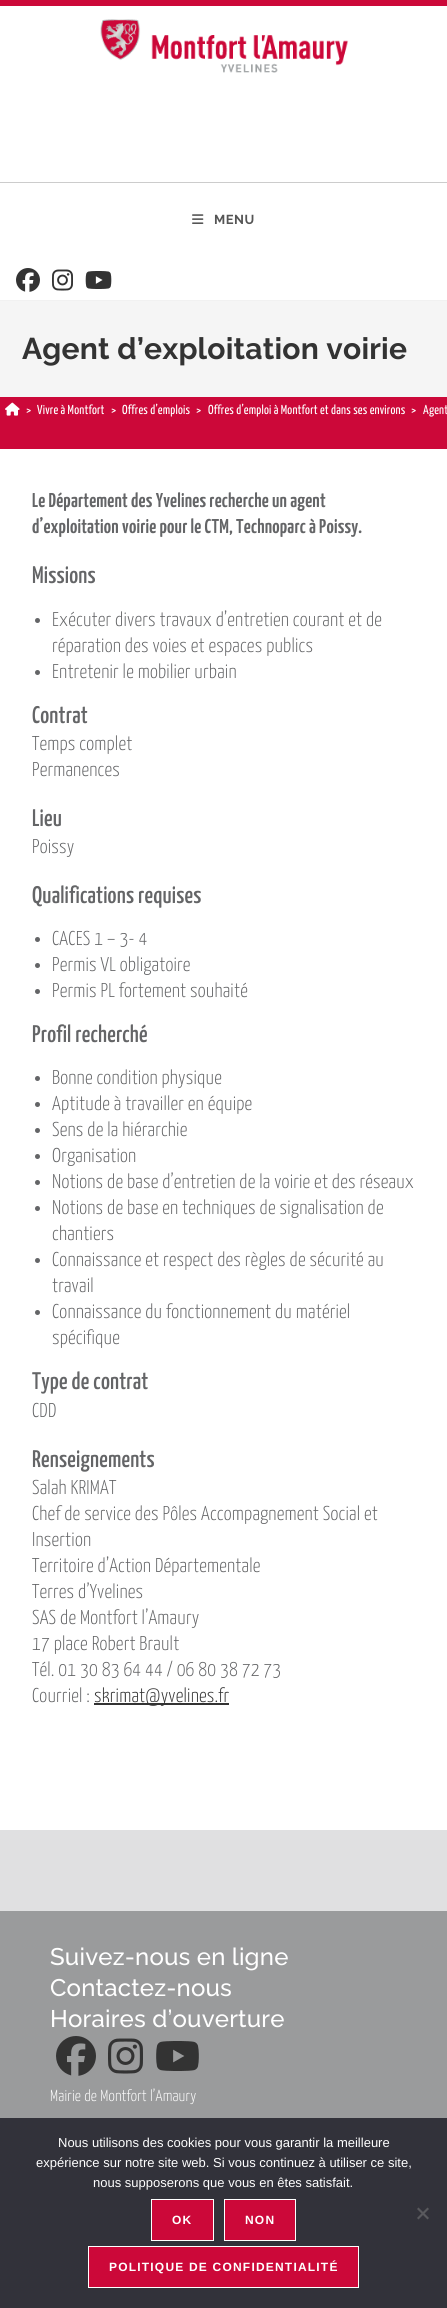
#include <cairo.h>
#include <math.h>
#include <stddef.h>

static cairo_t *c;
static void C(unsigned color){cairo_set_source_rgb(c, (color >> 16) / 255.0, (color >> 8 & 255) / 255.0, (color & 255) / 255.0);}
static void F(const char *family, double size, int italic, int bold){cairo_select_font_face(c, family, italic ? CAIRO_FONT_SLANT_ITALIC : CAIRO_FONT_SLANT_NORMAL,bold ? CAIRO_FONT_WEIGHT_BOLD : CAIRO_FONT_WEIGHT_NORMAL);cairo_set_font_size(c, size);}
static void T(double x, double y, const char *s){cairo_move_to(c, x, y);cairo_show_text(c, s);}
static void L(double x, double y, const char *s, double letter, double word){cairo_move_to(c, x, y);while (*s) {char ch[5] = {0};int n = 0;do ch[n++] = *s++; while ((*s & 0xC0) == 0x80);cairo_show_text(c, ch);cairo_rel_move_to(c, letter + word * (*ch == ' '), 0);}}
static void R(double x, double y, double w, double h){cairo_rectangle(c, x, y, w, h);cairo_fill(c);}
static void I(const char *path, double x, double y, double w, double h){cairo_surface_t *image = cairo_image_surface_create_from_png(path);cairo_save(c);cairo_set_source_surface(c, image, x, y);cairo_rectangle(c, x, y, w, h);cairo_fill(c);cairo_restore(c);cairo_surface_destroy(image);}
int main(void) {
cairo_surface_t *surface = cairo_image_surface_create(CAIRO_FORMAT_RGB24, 447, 2308);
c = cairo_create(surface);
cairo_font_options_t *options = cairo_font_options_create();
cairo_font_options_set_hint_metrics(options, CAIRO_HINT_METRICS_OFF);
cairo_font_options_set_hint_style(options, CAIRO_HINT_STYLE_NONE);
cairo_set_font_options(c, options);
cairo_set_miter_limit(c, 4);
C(0xffffff);
cairo_paint(c);
C(0xcc0839);
R(0,0,447,6);
C(0xf1f1f1);
R(0,300,447,1);
I("1.png",100,19,249,54);
C(0xcccccc);
R(0,182,447,1);
I("2.png",192,214,12,10);
F("Raleway",13,0,1);
C(0x555555);
L(214,224,"MENU",.5,0);
I("3.png",16,268,24,24);
I("4.png",52,269,21,22);
I("5.png",85,271,27,18);
C(0xf5f5f5);
R(0,301,447,96);
F("Raleway",30,0,1);
C(0x333333);
L(22,359,"Agent d’exploitation voirie",.2,0);
C(0xcc0839);
R(0,397,447,52);
I("6.png",5,402,15,14);
F("Yanone Kaffeesatz",13,0,0);
C(0xffffff);
L(26,414,">",.2,0);
L(37,414,"Vivre à Montfort",.2,0);
L(111,414,">",.2,0);
L(122,414,"Offres d’emplois",.2,0);
L(196,414,">",.2,0);
L(208,414,"Offres d’emploi à Montfort et dans ses environs",.2,0);
L(411,414,">",.2,0);
L(423,414,"Agent",.2,0);
F("Yanone Kaffeesatz SemiBold",20,0,0);
C(0x646567);
L(32,507,"Le Département des Yvelines recherche un agent",.2,0);
L(32,533,"d’exploitation voirie pour le CTM, Technoparc à Poissy.",.2,0);
F("Yanone Kaffeesatz Medium",24,0,0);
L(32,583,"Missions",.2,0);
cairo_new_path(c);
cairo_arc(c,37.5,620.5,2.5,0,2 * M_PI);
cairo_fill(c);
F("Yanone Kaffeesatz Light",20,0,0);
L(52,626,"Exécuter divers travaux d’entretien courant et de",.2,0);
L(52,652,"réparation des voies et espaces publics",.2,0);
cairo_new_path(c);
cairo_arc(c,37.5,672.5,2.5,0,2 * M_PI);
cairo_fill(c);
L(52,678,"Entretenir le mobilier urbain",.2,0);
F("Yanone Kaffeesatz Medium",24,0,0);
L(32,723,"Contrat",.2,0);
F("Yanone Kaffeesatz Light",20,0,0);
L(32,750,"Temps complet",.2,0);
L(32,776,"Permanences",.2,0);
F("Yanone Kaffeesatz Medium",24,0,0);
L(32,826,"Lieu",.2,0);
F("Yanone Kaffeesatz Light",20,0,0);
L(32,853,"Poissy",.2,0);
F("Yanone Kaffeesatz Medium",24,0,0);
L(32,903,"Qualifications requises",.2,0);
cairo_new_path(c);
cairo_arc(c,37.5,939.5,2.5,0,2 * M_PI);
cairo_fill(c);
F("Yanone Kaffeesatz Light",20,0,0);
L(52,945,"CACES 1 – 3- 4",.2,0);
cairo_new_path(c);
cairo_arc(c,37.5,965.5,2.5,0,2 * M_PI);
cairo_fill(c);
L(52,971,"Permis VL obligatoire",.2,0);
cairo_new_path(c);
cairo_arc(c,37.5,991.5,2.5,0,2 * M_PI);
cairo_fill(c);
L(52,997,"Permis PL fortement souhaité",.2,0);
F("Yanone Kaffeesatz Medium",24,0,0);
L(32,1042,"Profil recherché",.2,0);
cairo_new_path(c);
cairo_arc(c,37.5,1078.5,2.5,0,2 * M_PI);
cairo_fill(c);
F("Yanone Kaffeesatz Light",20,0,0);
L(52,1084,"Bonne condition physique",.2,0);
cairo_new_path(c);
cairo_arc(c,37.5,1104.5,2.5,0,2 * M_PI);
cairo_fill(c);
L(52,1110,"Aptitude à travailler en équipe",.2,0);
cairo_new_path(c);
cairo_arc(c,37.5,1130.5,2.5,0,2 * M_PI);
cairo_fill(c);
L(52,1136,"Sens de la hiérarchie",.2,0);
cairo_new_path(c);
cairo_arc(c,37.5,1156.5,2.5,0,2 * M_PI);
cairo_fill(c);
L(52,1162,"Organisation",.2,0);
cairo_new_path(c);
cairo_arc(c,37.5,1182.5,2.5,0,2 * M_PI);
cairo_fill(c);
L(52,1188,"Notions de base d’entretien de la voirie et des réseaux",.2,0);
cairo_new_path(c);
cairo_arc(c,37.5,1208.5,2.5,0,2 * M_PI);
cairo_fill(c);
L(52,1214,"Notions de base en techniques de signalisation de",.2,0);
L(52,1240,"chantiers",.2,0);
cairo_new_path(c);
cairo_arc(c,37.5,1260.5,2.5,0,2 * M_PI);
cairo_fill(c);
L(52,1266,"Connaissance et respect des règles de sécurité au",.2,0);
L(52,1292,"travail",.2,0);
cairo_new_path(c);
cairo_arc(c,37.5,1312.5,2.5,0,2 * M_PI);
cairo_fill(c);
L(52,1318,"Connaissance du fonctionnement du matériel",.2,0);
L(52,1344,"spécifique",.2,0);
F("Yanone Kaffeesatz Medium",24,0,0);
L(32,1389,"Type de contrat",.2,0);
F("Yanone Kaffeesatz Light",20,0,0);
L(32,1417,"CDD",.2,0);
F("Yanone Kaffeesatz Medium",24,0,0);
L(32,1467,"Renseignements",.2,0);
F("Yanone Kaffeesatz Light",20,0,0);
L(32,1494,"Salah KRIMAT",.2,0);
L(32,1520,"Chef de service des Pôles Accompagnement Social et",.2,0);
L(32,1546,"Insertion",.2,0);
L(32,1572,"Territoire d’Action Départementale",.2,0);
L(32,1598,"Terres d’Yvelines",.2,0);
L(32,1624,"SAS de Montfort l’Amaury",.2,0);
L(32,1650,"17 place Robert Brault",.2,0);
L(32,1676,"Tél. 01 30 83 64 44 / 06 80 38 72 73",.2,0);
L(32,1702,"Courriel :",.2,0);
C(0x333333);
R(94,1703,135,2);
L(94,1702,"skrimat@yvelines.fr",.2,0);
C(0xe0e0e1);
R(0,1830,447,81);
C(0x9a9b9c);
R(0,1911,447,207);
F("Raleway Medium",24,0,0);
C(0xffffff);
L(50,1965,"Suivez-nous en ligne",.2,0);
L(50,1996,"Contactez-nous",.2,0);
L(50,2027,"Horaires d’ouverture",.2,0);
I("7.png",56,2036,40,40);
I("8.png",108,2038,35,36);
I("9.png",156,2041,43,30);
F("Yanone Kaffeesatz Light",16,0,0);
L(50,2101,"Mairie de Montfort l’Amaury",.2,0);
C(0x32323a);
R(0,2118,447,190);
F("Liberation Sans",13,0,0);
C(0xffffff);
T(58,2147,"Nous utilisons des cookies pour vous garantir la meilleure");
T(36,2167,"expérience sur notre site web. Si vous continuez à utiliser ce site,");
T(93,2187,"nous supposerons que vous en êtes satisfait.");
C(0x59595d);
cairo_new_path(c);
cairo_move_to(c,427.5,2207.5);
cairo_line_to(c,429,2209);
cairo_line_to(c,418.5,2219.5);
cairo_line_to(c,417,2218);
cairo_close_path(c);
cairo_fill(c);
cairo_new_path(c);
cairo_move_to(c,417,2209);
cairo_line_to(c,418.5,2207.5);
cairo_line_to(c,429,2218);
cairo_line_to(c,427.5,2219.5);
cairo_close_path(c);
cairo_fill(c);
C(0xcc0839);
cairo_rectangle(c,151.5,2199.5,62,41);
cairo_fill_preserve(c);
C(0xffffff);
cairo_set_line_width(c,1);
cairo_stroke(c);
F("Liberation Sans",12,0,1);
L(172,2224,"OK",1.2,0);
C(0xcc0839);
cairo_rectangle(c,224.5,2199.5,71,41);
cairo_fill_preserve(c);
C(0xffffff);
cairo_stroke(c);
L(245,2224,"NON",1.2,0);
C(0xcc0839);
cairo_rectangle(c,88.5,2246.5,270,41);
cairo_fill_preserve(c);
C(0xffffff);
cairo_stroke(c);
L(109,2271,"POLITIQUE DE CONFIDENTIALITÉ",1.2,0);
cairo_surface_write_to_png(surface, "o.png");
cairo_font_options_destroy(options);
cairo_destroy(c);
cairo_surface_destroy(surface);
return 0;
}
